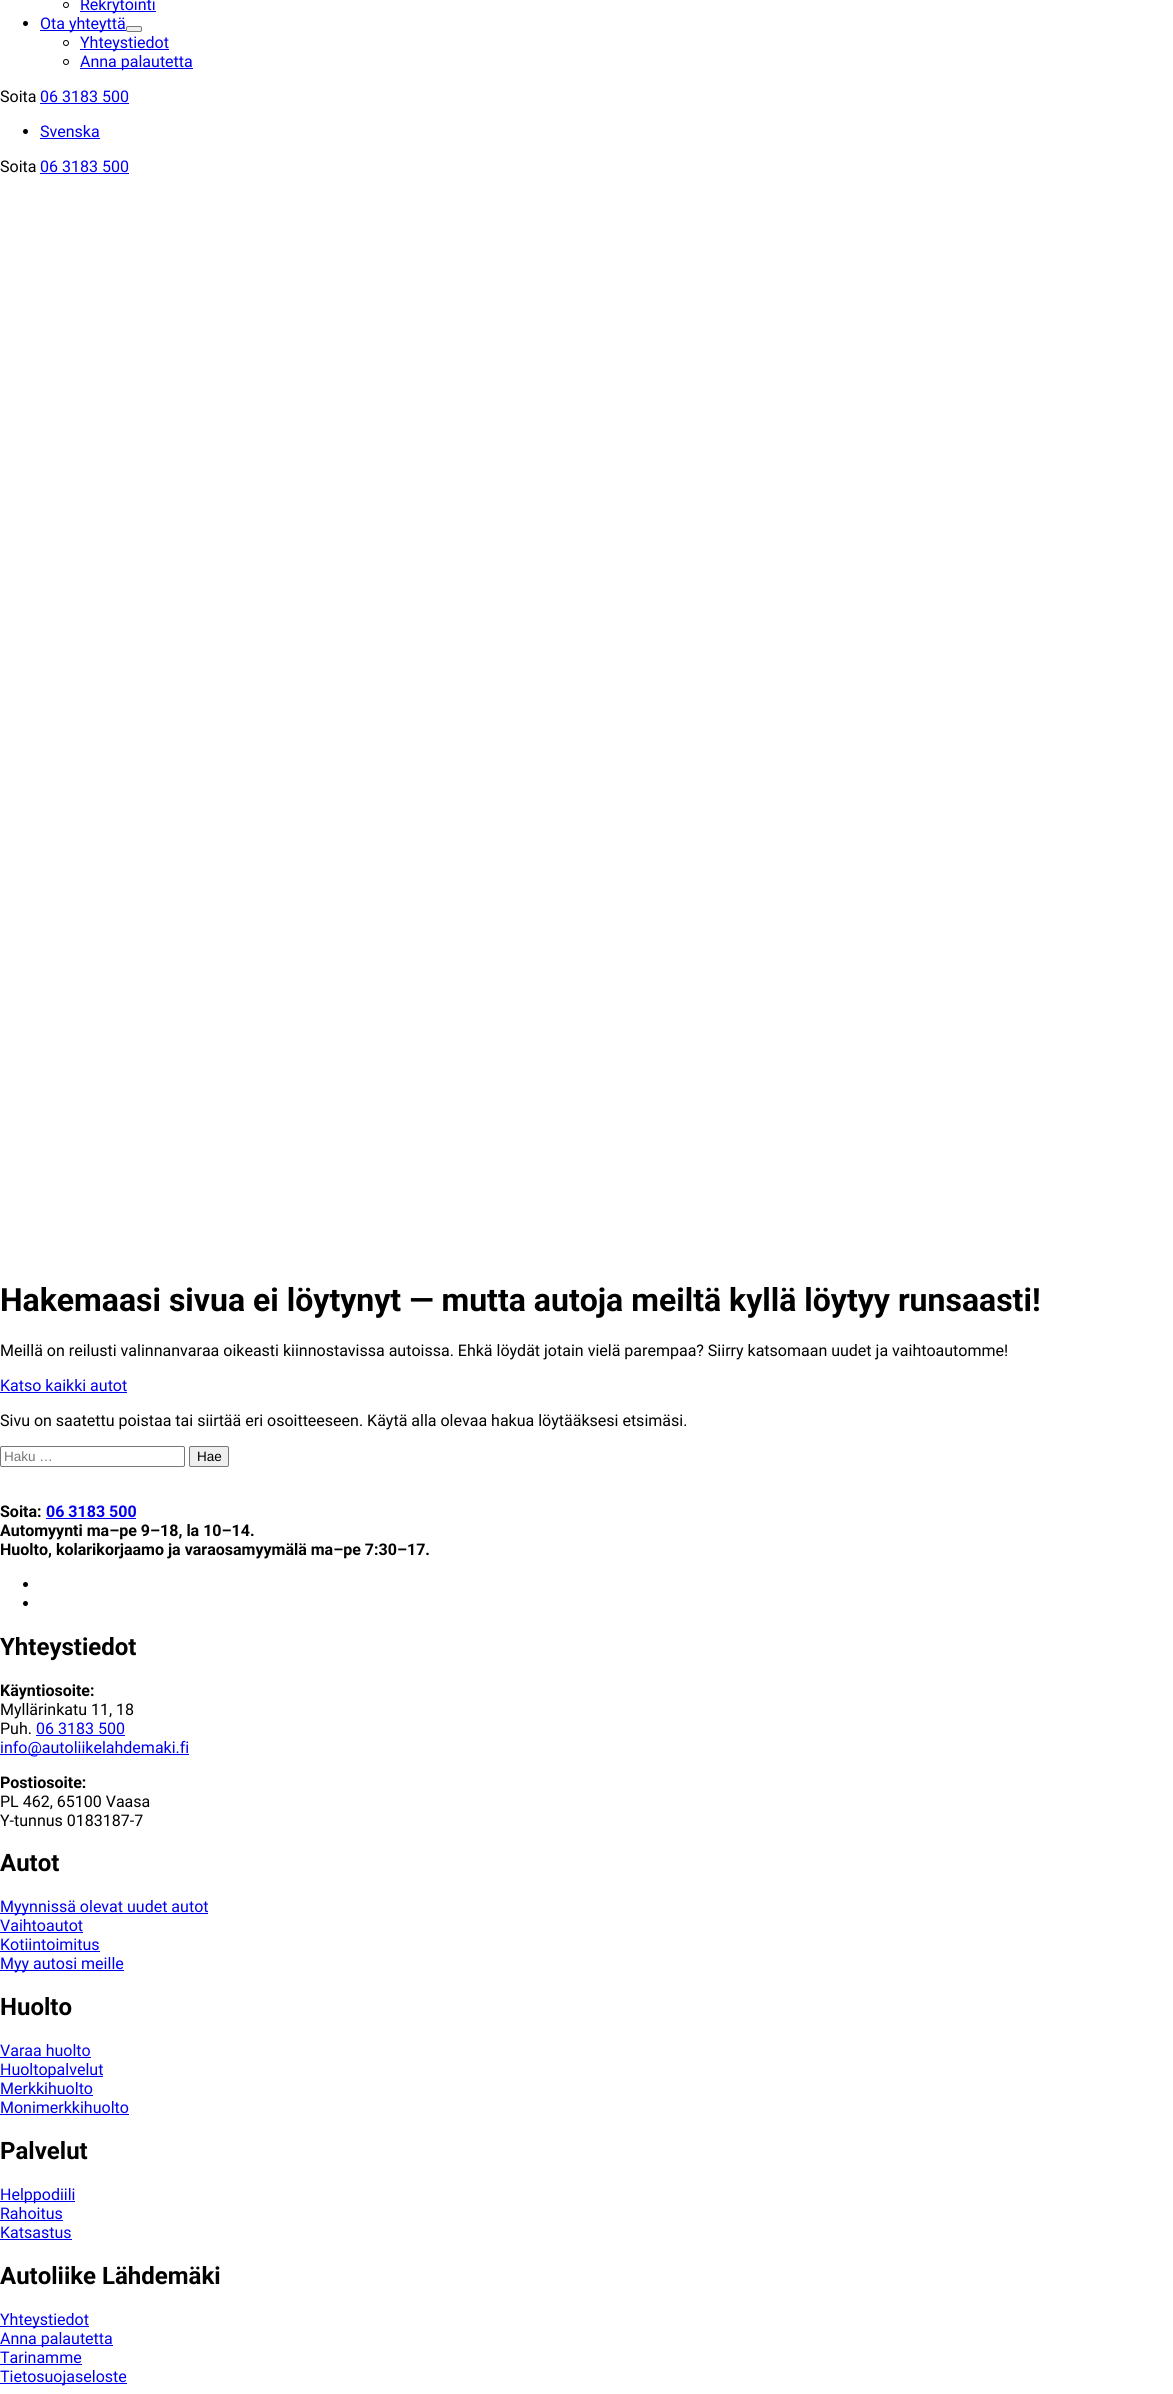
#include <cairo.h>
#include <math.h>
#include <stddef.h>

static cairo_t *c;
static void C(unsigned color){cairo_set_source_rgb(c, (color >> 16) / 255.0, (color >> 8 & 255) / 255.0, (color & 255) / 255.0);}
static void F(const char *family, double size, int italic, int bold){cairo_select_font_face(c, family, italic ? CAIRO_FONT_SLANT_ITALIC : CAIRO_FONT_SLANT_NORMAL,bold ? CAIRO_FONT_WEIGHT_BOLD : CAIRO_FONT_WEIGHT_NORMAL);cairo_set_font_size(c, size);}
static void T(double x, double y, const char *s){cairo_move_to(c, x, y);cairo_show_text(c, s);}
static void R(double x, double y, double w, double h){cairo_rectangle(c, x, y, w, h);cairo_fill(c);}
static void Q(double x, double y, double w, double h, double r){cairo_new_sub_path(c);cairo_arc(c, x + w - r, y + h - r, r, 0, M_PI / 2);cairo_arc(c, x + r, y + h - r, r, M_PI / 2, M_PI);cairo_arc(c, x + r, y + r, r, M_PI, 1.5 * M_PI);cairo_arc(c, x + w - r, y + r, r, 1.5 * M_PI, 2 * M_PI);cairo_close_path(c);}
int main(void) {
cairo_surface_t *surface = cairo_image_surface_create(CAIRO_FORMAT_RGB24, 1173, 2394);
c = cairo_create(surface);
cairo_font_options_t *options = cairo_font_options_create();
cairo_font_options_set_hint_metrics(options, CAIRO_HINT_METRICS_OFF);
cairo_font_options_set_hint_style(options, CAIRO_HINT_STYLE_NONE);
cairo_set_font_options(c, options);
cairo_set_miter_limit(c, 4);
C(0xffffff);
cairo_paint(c);
cairo_arc(c,66,5,2.5,0,2 * M_PI);
C(0x000000);
cairo_set_line_width(c,1);
cairo_stroke(c);
C(0x0000ee);
R(80,11,76,1);
F("Roboto",16,0,0);
T(80,10,"Rekrytointi");
C(0x000000);
cairo_new_path(c);
cairo_arc(c,25.5,23.5,2.5,0,2 * M_PI);
cairo_fill(c);
C(0x0000ee);
R(40,30,86,1);
T(40,29,"Ota yhteyttä");
C(0xefefef);
Q(126.5,26.5,15,5,1.5);
cairo_fill_preserve(c);
C(0x767676);
cairo_stroke(c);
cairo_arc(c,66,43,2.5,0,2 * M_PI);
C(0x000000);
cairo_stroke(c);
C(0x0000ee);
R(80,49,89,1);
T(80,48,"Yhteystiedot");
cairo_new_path(c);
cairo_arc(c,66,62,2.5,0,2 * M_PI);
C(0x000000);
cairo_stroke(c);
C(0x0000ee);
R(80,68,113,1);
T(80,67,"Anna palautetta");
C(0x000000);
T(0,102,"Soita");
C(0x0000ee);
T(40,102,"06 3183 500");
R(40,103,89,1);
C(0x000000);
cairo_new_path(c);
cairo_arc(c,25.5,131.5,2.5,0,2 * M_PI);
cairo_fill(c);
C(0x0000ee);
T(40,137,"Svenska");
R(40,138,60,1);
C(0x000000);
T(0,172,"Soita");
C(0x0000ee);
T(40,172,"06 3183 500");
R(40,173,89,1);
F("Roboto",32,0,1);
C(0x000000);
T(0,1311,"Hakemaasi sivua ei löytynyt — mutta autoja meiltä kyllä löytyy runsaasti!");
F("Roboto",16,0,0);
T(0,1356,"Meillä on reilusti valinnanvaraa oikeasti kiinnostavissa autoissa. Ehkä löydät jotain vielä parempaa? Siirry katsomaan uudet ja vaihtoautomme!");
C(0x0000ee);
T(0,1391,"Katso kaikki autot");
R(0,1392,127,1);
C(0x000000);
T(0,1426,"Sivu on saatettu poistaa tai siirtää eri osoitteeseen. Käytä alla olevaa hakua löytääksesi etsimäsi.");
Q(.5,1446.5,184,20,1.5);
C(0x767676);
cairo_stroke(c);
F("Liberation Sans",13.5,0,0);
C(0x757575);
T(4,1461,"Haku …");
C(0xefefef);
Q(189.5,1446.5,39,20,1.5);
cairo_fill_preserve(c);
C(0x767676);
cairo_stroke(c);
C(0x000000);
T(197,1461,"Hae");
F("Roboto",16,0,1);
T(0,1517,"Soita:");
C(0x0000ee);
T(46,1517,"06 3183 500");
R(46,1518,90,1);
C(0x000000);
T(0,1536,"Automyynti ma–pe 9–18, la 10–14.");
T(0,1555,"Huolto, kolarikorjaamo ja varaosamyymälä ma–pe 7:30–17.");
cairo_new_path(c);
cairo_arc(c,25.5,1584.5,2.5,0,2 * M_PI);
cairo_fill(c);
cairo_arc(c,25.5,1603.5,2.5,0,2 * M_PI);
cairo_fill(c);
F("Roboto",24,0,1);
T(0,1655,"Yhteystiedot");
F("Roboto",16,0,1);
T(0,1696,"Käyntiosoite:");
F("Roboto",16,0,0);
T(0,1715,"Myllärinkatu 11, 18");
T(0,1734,"Puh.");
C(0x0000ee);
T(36,1734,"06 3183 500");
R(36,1735,89,1);
R(0,1754,189,1);
T(0,1753,"info@autoliikelahdemaki.fi");
F("Roboto",16,0,1);
C(0x000000);
T(0,1788,"Postiosoite:");
F("Roboto",16,0,0);
T(0,1807,"PL 462, 65100 Vaasa");
T(0,1826,"Y-tunnus 0183187-7");
F("Roboto",24,0,1);
T(0,1871,"Autot");
C(0x0000ee);
R(0,1913,208,1);
F("Roboto",16,0,0);
T(0,1912,"Myynnissä olevat uudet autot");
T(0,1931,"Vaihtoautot");
R(0,1932,83,1);
T(0,1950,"Kotiintoimitus");
R(0,1951,100,1);
R(0,1970,124,1);
T(0,1969,"Myy autosi meille");
F("Roboto",24,0,1);
C(0x000000);
T(0,2015,"Huolto");
F("Roboto",16,0,0);
C(0x0000ee);
T(0,2056,"Varaa huolto");
R(0,2057,91,1);
R(0,2076,103,1);
T(0,2075,"Huoltopalvelut");
T(0,2094,"Merkkihuolto");
R(0,2095,93,1);
T(0,2113,"Monimerkkihuolto");
R(0,2114,129,1);
F("Roboto",24,0,1);
C(0x000000);
T(0,2159,"Palvelut");
C(0x0000ee);
R(0,2201,75,1);
F("Roboto",16,0,0);
T(0,2200,"Helppodiili");
T(0,2219,"Rahoitus");
R(0,2220,63,1);
T(0,2238,"Katsastus");
R(0,2239,72,1);
F("Roboto",24,0,1);
C(0x000000);
T(0,2284,"Autoliike Lähdemäki");
C(0x0000ee);
R(0,2326,89,1);
F("Roboto",16,0,0);
T(0,2325,"Yhteystiedot");
R(0,2345,113,1);
T(0,2344,"Anna palautetta");
T(0,2363,"Tarinamme");
R(0,2364,82,1);
R(0,2383,127,1);
T(0,2382,"Tietosuojaseloste");
cairo_surface_write_to_png(surface, "o.png");
cairo_font_options_destroy(options);
cairo_destroy(c);
cairo_surface_destroy(surface);
return 0;
}
